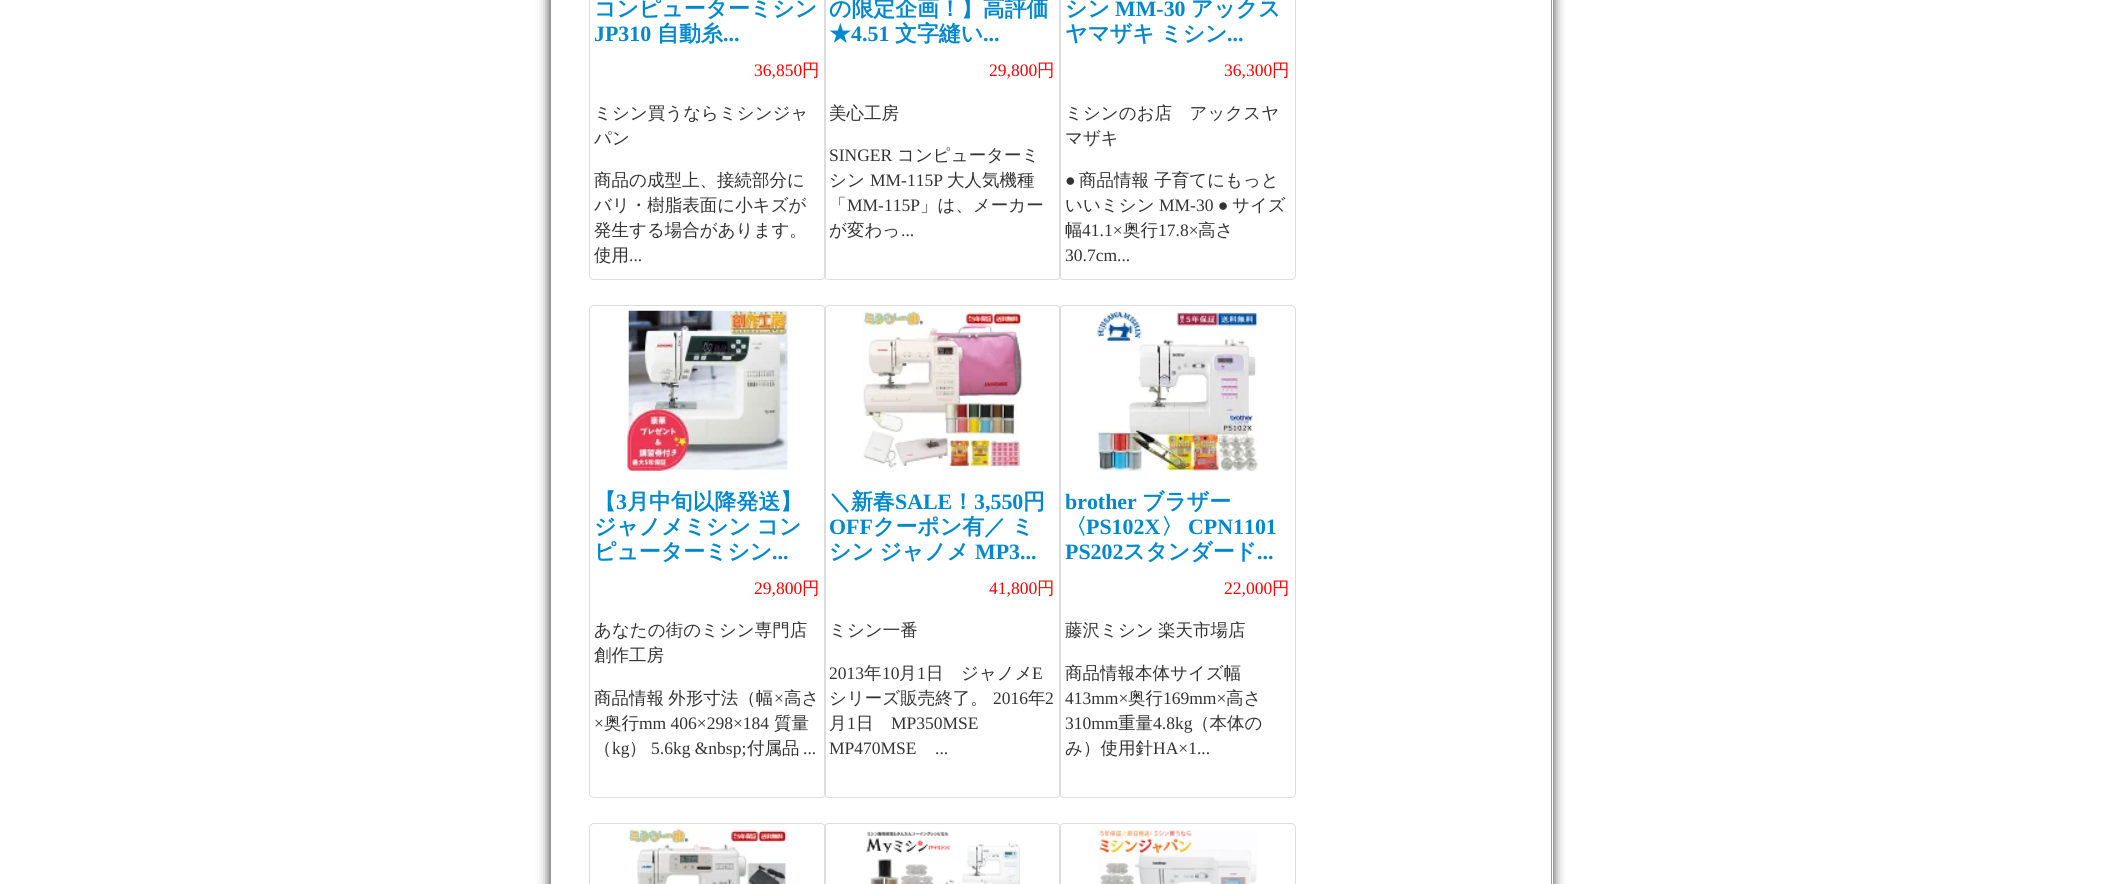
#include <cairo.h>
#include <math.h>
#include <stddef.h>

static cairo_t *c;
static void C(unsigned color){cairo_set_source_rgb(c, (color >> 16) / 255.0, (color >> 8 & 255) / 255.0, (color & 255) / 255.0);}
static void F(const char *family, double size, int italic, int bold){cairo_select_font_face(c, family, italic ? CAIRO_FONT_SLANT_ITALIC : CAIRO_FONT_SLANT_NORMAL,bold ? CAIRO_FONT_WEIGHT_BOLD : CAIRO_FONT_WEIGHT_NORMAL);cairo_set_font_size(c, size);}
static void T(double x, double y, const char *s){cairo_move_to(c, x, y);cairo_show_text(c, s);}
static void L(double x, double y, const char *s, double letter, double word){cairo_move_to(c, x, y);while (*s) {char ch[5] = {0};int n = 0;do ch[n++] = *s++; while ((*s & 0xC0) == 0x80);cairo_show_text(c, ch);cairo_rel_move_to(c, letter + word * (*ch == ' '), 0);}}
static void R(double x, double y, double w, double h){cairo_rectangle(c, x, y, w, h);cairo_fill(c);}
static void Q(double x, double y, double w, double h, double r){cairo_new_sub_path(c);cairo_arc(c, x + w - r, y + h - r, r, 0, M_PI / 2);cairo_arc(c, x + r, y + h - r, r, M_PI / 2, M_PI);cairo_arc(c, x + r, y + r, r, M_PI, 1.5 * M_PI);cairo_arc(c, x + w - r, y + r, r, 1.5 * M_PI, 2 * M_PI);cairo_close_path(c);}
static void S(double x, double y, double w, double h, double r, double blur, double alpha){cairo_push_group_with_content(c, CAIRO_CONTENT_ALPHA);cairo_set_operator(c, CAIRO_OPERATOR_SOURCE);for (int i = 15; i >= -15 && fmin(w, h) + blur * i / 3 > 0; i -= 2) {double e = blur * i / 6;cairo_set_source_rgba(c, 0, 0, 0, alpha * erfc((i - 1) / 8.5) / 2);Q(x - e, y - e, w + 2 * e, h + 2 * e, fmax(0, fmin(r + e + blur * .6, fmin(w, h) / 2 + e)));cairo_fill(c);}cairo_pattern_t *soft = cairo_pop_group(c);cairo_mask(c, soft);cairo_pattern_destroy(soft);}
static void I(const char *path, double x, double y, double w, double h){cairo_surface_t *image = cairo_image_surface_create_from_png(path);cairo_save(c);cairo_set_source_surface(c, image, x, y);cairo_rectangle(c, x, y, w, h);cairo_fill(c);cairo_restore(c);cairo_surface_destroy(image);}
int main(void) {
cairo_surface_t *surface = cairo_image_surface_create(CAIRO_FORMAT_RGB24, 2101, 884);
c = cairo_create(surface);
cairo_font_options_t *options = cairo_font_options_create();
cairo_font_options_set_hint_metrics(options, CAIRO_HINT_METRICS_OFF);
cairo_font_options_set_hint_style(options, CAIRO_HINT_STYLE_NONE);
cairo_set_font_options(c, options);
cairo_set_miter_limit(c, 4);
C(0xffffff);
cairo_paint(c);
C(0x333333);
S(550,-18,1003,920,0,6,1);
C(0xffffff);
R(551,0,1002,884);
C(0x999999);
R(1551,0,1,884);
R(550,0,1,884);
Q(589.5,-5.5,236,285,4.5);
C(0xdddddd);
cairo_set_line_width(c,1);
cairo_stroke(c);
F("WenQuanYi Zen Hei",21.9,0,1);
C(0x0088cc);
T(594,16,"コンピューターミシン");
F("Liberation Serif",21.9,0,1);
T(594,41,"JP310");
F("WenQuanYi Zen Hei",21.9,0,1);
T(657,41,"自動糸");
F("Liberation Serif",21.9,0,1);
T(723,41,"...");
F("Liberation Serif",17.5,0,0);
C(0xff0000);
T(754,76,"36,850");
F("WenQuanYi Zen Hei Medium",17.5,0,0);
T(802,76,"円");
C(0x333333);
T(594,119,"ミシン買うならミシンジャ");
T(594,144,"パン");
T(594,186,"商品の成型上、接続部分に");
T(594,211,"バリ・樹脂表面に小キズが");
T(594,236,"発生する場合があります。");
T(594,261,"使用");
F("Liberation Serif",17.5,0,0);
T(629,261,"...");
Q(824.5,-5.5,236,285,4.5);
C(0xdddddd);
cairo_stroke(c);
F("WenQuanYi Zen Hei",21.9,0,1);
C(0x0088cc);
T(829,16,"の限定企画！】高評価");
T(829,41,"★");
F("Liberation Serif",21.9,0,1);
T(851,41,"4.51");
F("WenQuanYi Zen Hei",21.9,0,1);
T(895,41,"文字縫い");
F("Liberation Serif",21.9,0,1);
T(983,41,"...");
F("Liberation Serif",17.5,0,0);
C(0xff0000);
T(989,76,"29,800");
F("WenQuanYi Zen Hei Medium",17.5,0,0);
T(1037,76,"円");
C(0x333333);
T(829,119,"美心工房");
F("Liberation Serif",17.5,0,0);
T(829,161,"SINGER");
F("WenQuanYi Zen Hei Medium",17.5,0,0);
T(897,161,"コンピューターミ");
T(829,186,"シン");
F("Liberation Serif",17.5,0,0);
T(870,186,"MM-115P");
F("WenQuanYi Zen Hei Medium",17.5,0,0);
T(947,186,"大人気機種");
T(829,211,"「");
F("Liberation Serif",17.5,0,0);
T(847,211,"MM-115P");
F("WenQuanYi Zen Hei Medium",17.5,0,0);
T(920,211,"」は、メーカー");
T(829,236,"が変わっ");
F("Liberation Serif",17.5,0,0);
T(901,236,"...");
Q(1059.5,-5.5,236,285,4.5);
C(0xdddddd);
cairo_stroke(c);
F("WenQuanYi Zen Hei",21.9,0,1);
C(0x0088cc);
T(1065,16,"シン");
F("Liberation Serif",21.9,0,1);
T(1115,16,"MM-30");
F("WenQuanYi Zen Hei",21.9,0,1);
T(1191,16,"アックス");
L(1065,41,"ヤマザキ ミシン",0,-1);
F("Liberation Serif",21.9,0,1);
T(1227,41,"...");
F("Liberation Serif",17.5,0,0);
C(0xff0000);
T(1224,76,"36,300");
F("WenQuanYi Zen Hei Medium",17.5,0,0);
T(1272,76,"円");
C(0x333333);
T(1065,119,"ミシンのお店　アックスヤ");
T(1065,144,"マザキ");
F("Liberation Serif",17.5,0,0);
T(1065,186,"●");
F("WenQuanYi Zen Hei Medium",17.5,0,0);
T(1079,186,"商品情報 子育てにもっと");
T(1065,211,"いいミシン");
F("Liberation Serif",17.5,0,0);
T(1159,211,"MM-30 ●");
F("WenQuanYi Zen Hei Medium",17.5,0,0);
T(1232,211,"サイズ");
T(1065,236,"幅");
F("Liberation Serif",17.5,0,0);
T(1082,236,"41.1×");
F("WenQuanYi Zen Hei Medium",17.5,0,0);
T(1123,236,"奥行");
F("Liberation Serif",17.5,0,0);
T(1158,236,"17.8×");
F("WenQuanYi Zen Hei Medium",17.5,0,0);
T(1198,236,"高さ");
F("Liberation Serif",17.5,0,0);
T(1065,261,"30.7cm...");
Q(589.5,305.5,236,492,4.5);
C(0xdddddd);
cairo_stroke(c);
I("1.png",627,310,161,161);
F("WenQuanYi Zen Hei",21.9,0,1);
C(0x0088cc);
T(594,509,"【");
F("Liberation Serif",21.9,0,1);
T(616,509,"3");
F("WenQuanYi Zen Hei",21.9,0,1);
T(627,509,"月中旬以降発送】");
L(594,534,"ジャノメミシン コン",0,-1);
T(594,559,"ピューターミシン");
F("Liberation Serif",21.9,0,1);
T(772,559,"...");
F("Liberation Serif",17.5,0,0);
C(0xff0000);
T(754,594,"29,800");
F("WenQuanYi Zen Hei Medium",17.5,0,0);
T(802,594,"円");
C(0x333333);
T(594,636,"あなたの街のミシン専門店");
T(594,661,"創作工房");
L(594,704,"商品情報 外形寸法（幅",0,-1);
F("Liberation Serif",17.5,0,0);
T(774,704,"×");
F("WenQuanYi Zen Hei Medium",17.5,0,0);
T(784,704,"高さ");
F("Liberation Serif",17.5,0,0);
T(594,729,"×");
F("WenQuanYi Zen Hei Medium",17.5,0,0);
T(604,729,"奥行");
F("Liberation Serif",17.5,0,0);
T(639,729,"mm 406×298×184");
F("WenQuanYi Zen Hei Medium",17.5,0,0);
T(774,729,"質量");
T(594,754,"（");
F("Liberation Serif",17.5,0,0);
T(612,754,"kg");
F("WenQuanYi Zen Hei Medium",17.5,0,0);
T(629,754,"）");
F("Liberation Serif",17.5,0,0);
T(651,754,"5.6kg &nbsp;");
F("WenQuanYi Zen Hei Medium",17.5,0,0);
T(747,754,"付属品");
F("Liberation Serif",17.5,0,0);
T(803,754,"...");
Q(824.5,305.5,236,492,4.5);
C(0xdddddd);
cairo_stroke(c);
I("2.png",862,310,161,161);
F("WenQuanYi Zen Hei",21.9,0,1);
C(0x0088cc);
T(829,509,"＼新春");
F("Liberation Serif",21.9,0,1);
T(895,509,"SALE");
F("WenQuanYi Zen Hei",21.9,0,1);
T(952,509,"！");
F("Liberation Serif",21.9,0,1);
T(974,509,"3,550");
F("WenQuanYi Zen Hei",21.9,0,1);
T(1023,509,"円");
F("Liberation Serif",21.9,0,1);
T(829,534,"OFF");
F("WenQuanYi Zen Hei",21.9,0,1);
L(873,534,"クーポン有／ ミ",0,-1);
L(829,559,"シン ジャノメ",0,-1);
F("Liberation Serif",21.9,0,1);
T(975,559,"MP3...");
F("Liberation Serif",17.5,0,0);
C(0xff0000);
T(989,594,"41,800");
F("WenQuanYi Zen Hei Medium",17.5,0,0);
T(1037,594,"円");
C(0x333333);
T(829,636,"ミシン一番");
F("Liberation Serif",17.5,0,0);
T(829,679,"2013");
F("WenQuanYi Zen Hei Medium",17.5,0,0);
T(864,679,"年");
F("Liberation Serif",17.5,0,0);
T(882,679,"10");
F("WenQuanYi Zen Hei Medium",17.5,0,0);
T(899,679,"月");
F("Liberation Serif",17.5,0,0);
T(917,679,"1");
F("WenQuanYi Zen Hei Medium",17.5,0,0);
T(926,679,"日　ジャノメ");
F("Liberation Serif",17.5,0,0);
T(1032,679,"E");
F("WenQuanYi Zen Hei Medium",17.5,0,0);
T(829,704,"シリーズ販売終了。");
F("Liberation Serif",17.5,0,0);
T(993,704,"2016");
F("WenQuanYi Zen Hei Medium",17.5,0,0);
T(1028,704,"年");
F("Liberation Serif",17.5,0,0);
T(1045,704,"2");
F("WenQuanYi Zen Hei Medium",17.5,0,0);
T(829,729,"月");
F("Liberation Serif",17.5,0,0);
T(847,729,"1");
F("WenQuanYi Zen Hei Medium",17.5,0,0);
T(856,729,"日");
F("Liberation Serif",17.5,0,0);
T(891,729,"MP350MSE");
T(829,754,"MP470MSE");
T(935,754,"...");
Q(1059.5,305.5,236,492,4.5);
C(0xdddddd);
cairo_stroke(c);
I("3.png",1097,310,161,161);
F("Liberation Serif",21.9,0,1);
C(0x0088cc);
T(1065,509,"brother");
F("WenQuanYi Zen Hei",21.9,0,1);
T(1142,509,"ブラザー");
T(1065,534,"〈");
F("Liberation Serif",21.9,0,1);
T(1086,534,"PS102X");
F("WenQuanYi Zen Hei",21.9,0,1);
T(1161,534,"〉");
F("Liberation Serif",21.9,0,1);
T(1188,534,"CPN1101");
T(1065,559,"PS202");
F("WenQuanYi Zen Hei",21.9,0,1);
T(1123,559,"スタンダード");
F("Liberation Serif",21.9,0,1);
T(1257,559,"...");
F("Liberation Serif",17.5,0,0);
C(0xff0000);
T(1224,594,"22,000");
F("WenQuanYi Zen Hei Medium",17.5,0,0);
T(1272,594,"円");
C(0x333333);
L(1065,636,"藤沢ミシン 楽天市場店",0,-1);
T(1065,679,"商品情報本体サイズ幅");
F("Liberation Serif",17.5,0,0);
T(1065,704,"413mm×");
F("WenQuanYi Zen Hei Medium",17.5,0,0);
T(1128,704,"奥行");
F("Liberation Serif",17.5,0,0);
T(1163,704,"169mm×");
F("WenQuanYi Zen Hei Medium",17.5,0,0);
T(1226,704,"高さ");
F("Liberation Serif",17.5,0,0);
T(1065,729,"310mm");
F("WenQuanYi Zen Hei Medium",17.5,0,0);
T(1118,729,"重量");
F("Liberation Serif",17.5,0,0);
T(1153,729,"4.8kg");
F("WenQuanYi Zen Hei Medium",17.5,0,0);
T(1192,729,"（本体の");
T(1065,754,"み）使用針");
F("Liberation Serif",17.5,0,0);
T(1153,754,"HA×1...");
Q(589.5,823.5,236,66,4.5);
C(0xdddddd);
cairo_stroke(c);
I("4.png",627,828,161,56);
Q(824.5,823.5,236,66,4.5);
cairo_stroke(c);
I("5.png",866,831,154,53);
Q(1059.5,823.5,236,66,4.5);
cairo_stroke(c);
I("6.png",1098,830,160,54);
cairo_surface_write_to_png(surface, "o.png");
cairo_font_options_destroy(options);
cairo_destroy(c);
cairo_surface_destroy(surface);
return 0;
}
